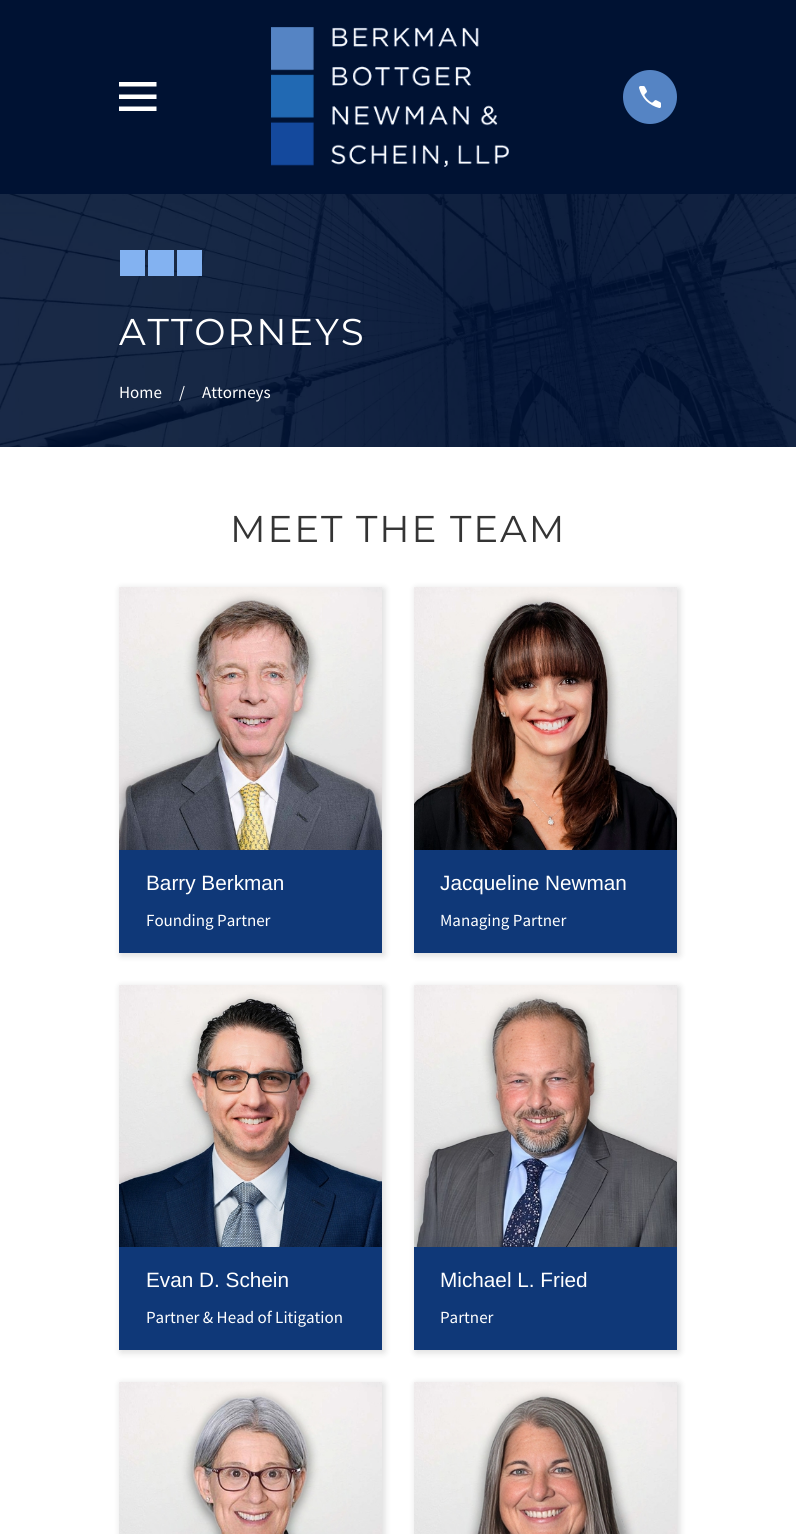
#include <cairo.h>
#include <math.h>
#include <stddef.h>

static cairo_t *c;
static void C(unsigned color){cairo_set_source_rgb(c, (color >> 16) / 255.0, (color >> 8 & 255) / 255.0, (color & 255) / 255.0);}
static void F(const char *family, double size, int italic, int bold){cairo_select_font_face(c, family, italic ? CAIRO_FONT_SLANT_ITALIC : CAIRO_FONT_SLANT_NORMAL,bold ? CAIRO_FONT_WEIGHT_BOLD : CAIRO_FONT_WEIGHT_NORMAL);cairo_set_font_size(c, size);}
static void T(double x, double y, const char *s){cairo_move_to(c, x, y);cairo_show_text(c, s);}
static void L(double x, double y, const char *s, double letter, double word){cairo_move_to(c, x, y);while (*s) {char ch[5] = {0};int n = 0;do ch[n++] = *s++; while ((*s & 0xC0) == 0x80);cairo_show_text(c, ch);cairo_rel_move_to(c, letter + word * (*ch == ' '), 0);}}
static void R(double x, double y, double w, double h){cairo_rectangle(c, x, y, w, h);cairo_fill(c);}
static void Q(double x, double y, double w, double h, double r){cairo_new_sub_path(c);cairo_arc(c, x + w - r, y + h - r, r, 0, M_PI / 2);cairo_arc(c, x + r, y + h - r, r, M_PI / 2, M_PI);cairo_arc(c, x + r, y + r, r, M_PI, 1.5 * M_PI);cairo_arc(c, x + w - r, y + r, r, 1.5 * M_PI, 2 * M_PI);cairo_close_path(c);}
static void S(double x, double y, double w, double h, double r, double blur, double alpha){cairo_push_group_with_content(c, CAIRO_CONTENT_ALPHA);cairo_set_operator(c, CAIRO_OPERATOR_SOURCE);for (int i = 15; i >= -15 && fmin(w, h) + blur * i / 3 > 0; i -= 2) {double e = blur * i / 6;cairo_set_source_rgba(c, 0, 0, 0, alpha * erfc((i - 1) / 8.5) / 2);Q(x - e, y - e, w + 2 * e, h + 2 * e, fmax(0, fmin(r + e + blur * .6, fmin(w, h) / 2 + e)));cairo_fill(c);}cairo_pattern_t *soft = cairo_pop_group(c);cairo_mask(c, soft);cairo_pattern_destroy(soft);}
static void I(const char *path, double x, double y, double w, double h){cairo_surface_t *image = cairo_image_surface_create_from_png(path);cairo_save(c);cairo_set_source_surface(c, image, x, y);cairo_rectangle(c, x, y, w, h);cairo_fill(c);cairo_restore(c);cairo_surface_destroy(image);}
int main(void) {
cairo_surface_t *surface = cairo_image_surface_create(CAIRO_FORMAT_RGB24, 796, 1534);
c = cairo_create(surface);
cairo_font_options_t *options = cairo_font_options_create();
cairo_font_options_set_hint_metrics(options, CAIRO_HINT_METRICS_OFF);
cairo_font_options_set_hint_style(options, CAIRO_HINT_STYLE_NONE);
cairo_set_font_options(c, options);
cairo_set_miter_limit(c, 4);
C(0xffffff);
cairo_paint(c);
C(0x001233);
R(0,0,796,447);
C(0xffffff);
cairo_new_path(c);
cairo_move_to(c,119,82);
cairo_line_to(c,119,86.5);
cairo_line_to(c,156.5,86.5);
cairo_line_to(c,156.5,82);
cairo_close_path(c);
cairo_move_to(c,119,94.5);
cairo_line_to(c,119,99);
cairo_line_to(c,156.5,99);
cairo_line_to(c,156.5,94.5);
cairo_close_path(c);
cairo_move_to(c,119,106.5);
cairo_line_to(c,119,111);
cairo_line_to(c,156.5,111);
cairo_line_to(c,156.5,106.5);
cairo_close_path(c);
cairo_fill(c);
I("1.png",271,27,238,140);
C(0x5584c4);
cairo_arc(c,650,97,27,0,2 * M_PI);
cairo_fill(c);
I("2.png",639,86,22,22);
I("3.png",0,194,796,253);
C(0x83b2f1);
cairo_new_path(c);
cairo_move_to(c,202,250);
cairo_line_to(c,202,276);
cairo_line_to(c,177,276);
cairo_line_to(c,177,250);
cairo_close_path(c);
cairo_move_to(c,148,250);
cairo_line_to(c,148,276);
cairo_line_to(c,174,276);
cairo_line_to(c,174,250);
cairo_close_path(c);
cairo_move_to(c,120,250);
cairo_line_to(c,120,276);
cairo_line_to(c,145,276);
cairo_line_to(c,145,250);
cairo_close_path(c);
cairo_fill(c);
F("Montserrat",37.25,0,0);
C(0xffffff);
L(119,345,"ATTORNEYS",1.9,0);
F("Source Sans Pro",17,0,0);
T(119,398,"Home");
T(179,398,"/");
T(202,398,"Attorneys");
F("Montserrat",37.25,0,0);
C(0x343434);
L(230,542,"MEET THE TEAM",1.9,0);
C(0x000000);
S(121,589,263,366,0,4,.16);
I("4.png",119,587,263,263);
C(0x0f3878);
R(119,850,263,103);
F("Liberation Sans",20.75,0,0);
C(0xffffff);
T(146,890,"Barry Berkman");
F("Source Sans Pro",17,0,0);
T(146,926,"Founding Partner");
C(0x000000);
S(416,589,263,366,0,4,.16);
I("5.png",414,587,263,263);
C(0x0f3878);
R(414,850,263,103);
F("Liberation Sans",20.75,0,0);
C(0xffffff);
T(440,890,"Jacqueline Newman");
F("Source Sans Pro",17,0,0);
T(440,926,"Managing Partner");
C(0x000000);
S(121,987,263,365,0,4,.16);
I("6.png",119,985,263,262);
C(0x0f3878);
R(119,1247,263,103);
F("Liberation Sans",20.75,0,0);
C(0xffffff);
T(146,1287,"Evan D. Schein");
F("Source Sans Pro",17,0,0);
T(146,1323,"Partner & Head of Litigation");
C(0x000000);
S(416,987,263,365,0,4,.16);
I("7.png",414,985,263,262);
C(0x0f3878);
R(414,1247,263,103);
F("Liberation Sans",20.75,0,0);
C(0xffffff);
T(440,1287,"Michael L. Fried");
F("Source Sans Pro",17,0,0);
T(440,1323,"Partner");
C(0x000000);
S(121,1384,263,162,0,4,.16);
I("8.png",119,1382,263,152);
S(416,1384,263,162,0,4,.16);
I("9.png",414,1382,263,152);
cairo_surface_write_to_png(surface, "o.png");
cairo_font_options_destroy(options);
cairo_destroy(c);
cairo_surface_destroy(surface);
return 0;
}
